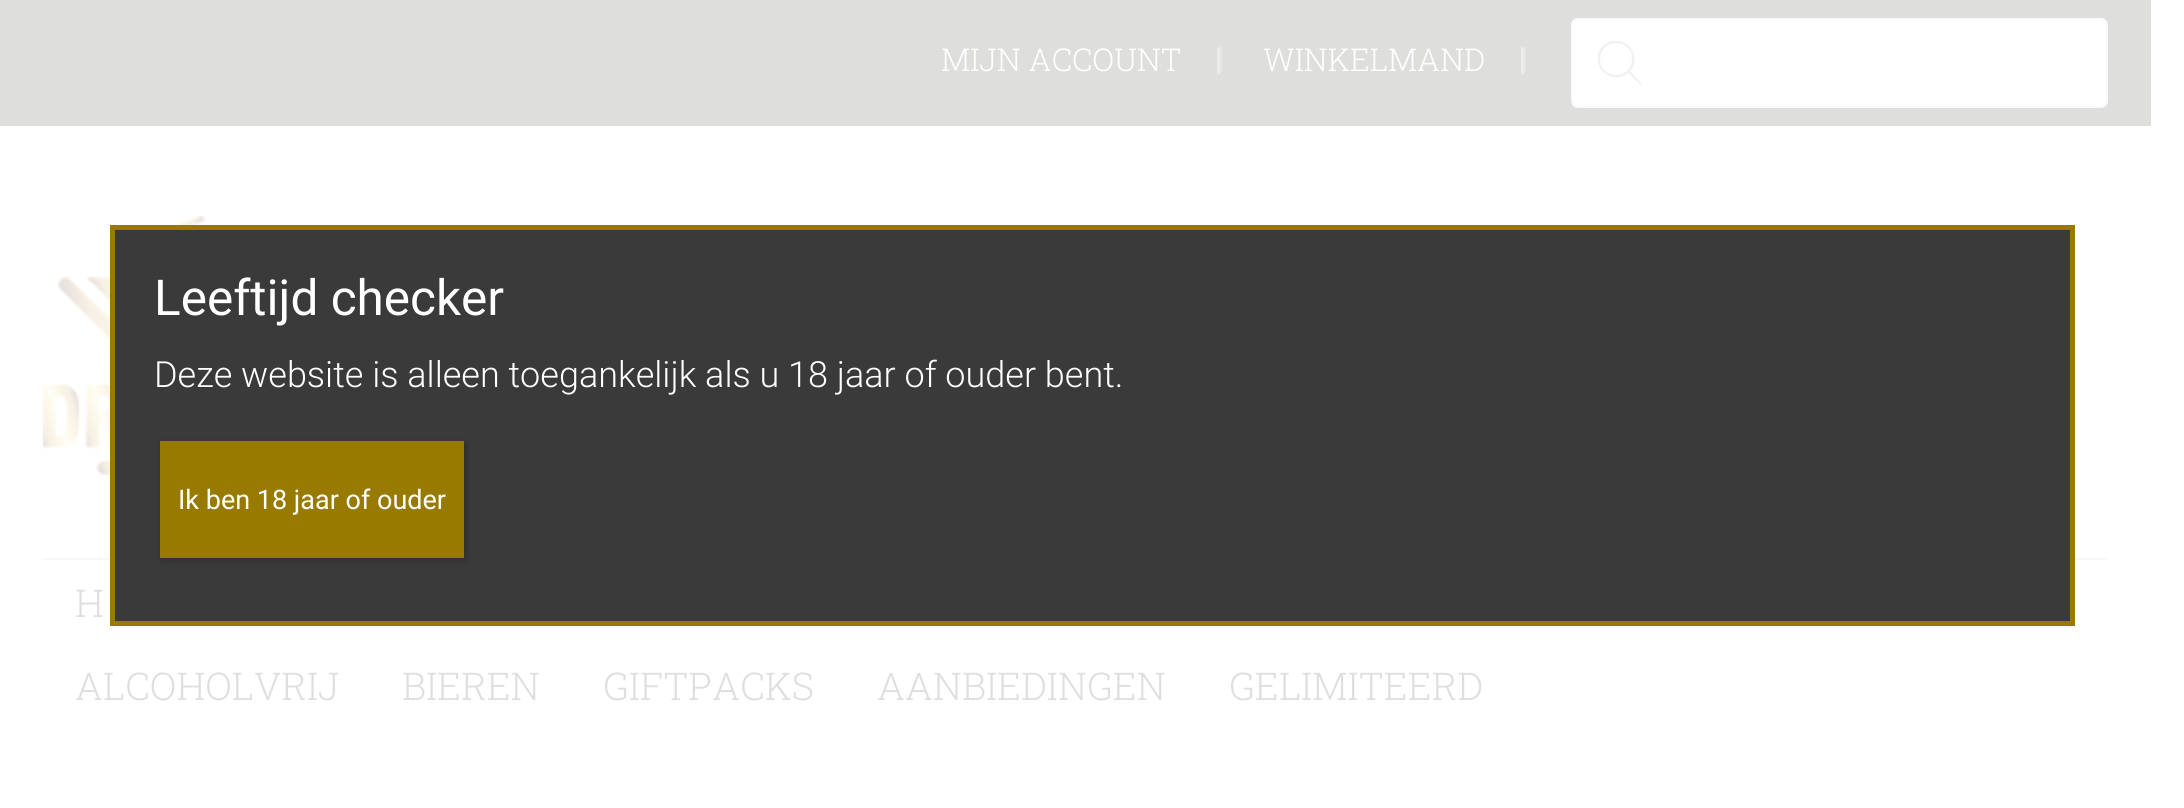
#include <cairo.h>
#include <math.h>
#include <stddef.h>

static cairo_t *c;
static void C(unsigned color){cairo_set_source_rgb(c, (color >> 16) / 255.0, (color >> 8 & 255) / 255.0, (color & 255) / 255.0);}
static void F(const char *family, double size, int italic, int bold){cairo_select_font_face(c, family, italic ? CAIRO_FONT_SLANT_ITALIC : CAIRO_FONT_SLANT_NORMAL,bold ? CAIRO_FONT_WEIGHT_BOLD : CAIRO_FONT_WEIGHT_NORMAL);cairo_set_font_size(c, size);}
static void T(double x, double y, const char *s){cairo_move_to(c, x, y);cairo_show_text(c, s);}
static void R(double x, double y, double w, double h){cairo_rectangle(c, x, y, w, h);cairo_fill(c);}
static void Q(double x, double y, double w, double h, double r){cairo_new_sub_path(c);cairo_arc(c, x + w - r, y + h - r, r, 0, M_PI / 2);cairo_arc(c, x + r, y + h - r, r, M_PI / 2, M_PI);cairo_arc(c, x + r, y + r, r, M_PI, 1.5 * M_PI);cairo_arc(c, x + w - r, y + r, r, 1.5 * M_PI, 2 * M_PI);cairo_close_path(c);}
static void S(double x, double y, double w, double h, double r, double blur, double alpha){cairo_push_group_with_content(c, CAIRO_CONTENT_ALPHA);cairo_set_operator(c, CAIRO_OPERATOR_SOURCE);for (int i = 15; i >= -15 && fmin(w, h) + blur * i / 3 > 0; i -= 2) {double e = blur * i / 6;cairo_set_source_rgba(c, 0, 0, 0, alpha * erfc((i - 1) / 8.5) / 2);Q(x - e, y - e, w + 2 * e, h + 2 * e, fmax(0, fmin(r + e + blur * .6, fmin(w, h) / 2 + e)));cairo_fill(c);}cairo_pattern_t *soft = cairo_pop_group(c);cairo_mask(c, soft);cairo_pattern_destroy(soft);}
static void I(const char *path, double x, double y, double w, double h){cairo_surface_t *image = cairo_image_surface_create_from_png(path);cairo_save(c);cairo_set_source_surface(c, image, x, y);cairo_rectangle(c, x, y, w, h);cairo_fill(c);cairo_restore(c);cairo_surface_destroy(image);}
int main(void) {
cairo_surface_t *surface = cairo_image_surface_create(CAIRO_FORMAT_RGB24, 2184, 808);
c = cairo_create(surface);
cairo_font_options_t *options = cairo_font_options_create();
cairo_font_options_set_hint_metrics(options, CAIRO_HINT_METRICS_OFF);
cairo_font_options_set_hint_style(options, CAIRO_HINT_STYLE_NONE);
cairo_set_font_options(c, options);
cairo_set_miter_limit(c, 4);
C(0xffffff);
cairo_paint(c);
C(0xdededd);
R(0,0,2151,126);
I("1.png",1217,47,5,28);
F("Roboto Slab Light",31.5,0,0);
C(0xffffff);
T(941,71,"MIJN ACCOUNT");
I("2.png",1521,47,5,28);
T(1263,71,"WINKELMAND");
Q(1572,19,535,88,6);
cairo_fill_preserve(c);
C(0xfafafa);
cairo_stroke(c);
cairo_save(c);
cairo_rectangle(c,1598,41,45,45);
cairo_clip(c);
C(0xf1f1f1);
cairo_new_path(c);
cairo_move_to(c,1642,84);
cairo_line_to(c,1630,71);
cairo_curve_to(c,1645,54,1620,29,1603,46);
cairo_curve_to(c,1586,63,1611,88,1628,73);
cairo_line_to(c,1641,85);
cairo_close_path(c);
cairo_move_to(c,1600,59);
cairo_curve_to(c,1600,38,1632,38,1632,59);
cairo_curve_to(c,1632,80,1600,80,1600,59);
cairo_close_path(c);
cairo_fill(c);
cairo_restore(c);
I("3.png",42,216,164,259);
C(0xf8f8f8);
R(43,558,2065,2);
F("Roboto Slab Light",38.25,0,0);
C(0xdededd);
T(75,617,"H");
T(75,700,"ALCOHOLVRIJ");
T(402,700,"BIEREN");
T(603,700,"GIFTPACKS");
T(877,700,"AANBIEDINGEN");
T(1229,700,"GELIMITEERD");
C(0x3a3a3a);
cairo_rectangle(c,112.5,227.5,1960,396);
cairo_fill_preserve(c);
C(0x997a00);
cairo_set_line_width(c,5);
cairo_stroke(c);
F("Roboto",49.5,0,0);
C(0xffffff);
T(154,315,"Leeftijd checker");
F("Roboto Light",36,0,0);
T(154,387,"Deze website is alleen toegankelijk als u 18 jaar of ouder bent.");
C(0x020202);
S(162,443,304,117,0,3.5,.23);
C(0x997a00);
R(160,441,304,117);
F("Roboto",27,0,0);
C(0xffffff);
T(178,509,"Ik ben 18 jaar of ouder");
cairo_surface_write_to_png(surface, "o.png");
cairo_font_options_destroy(options);
cairo_destroy(c);
cairo_surface_destroy(surface);
return 0;
}
